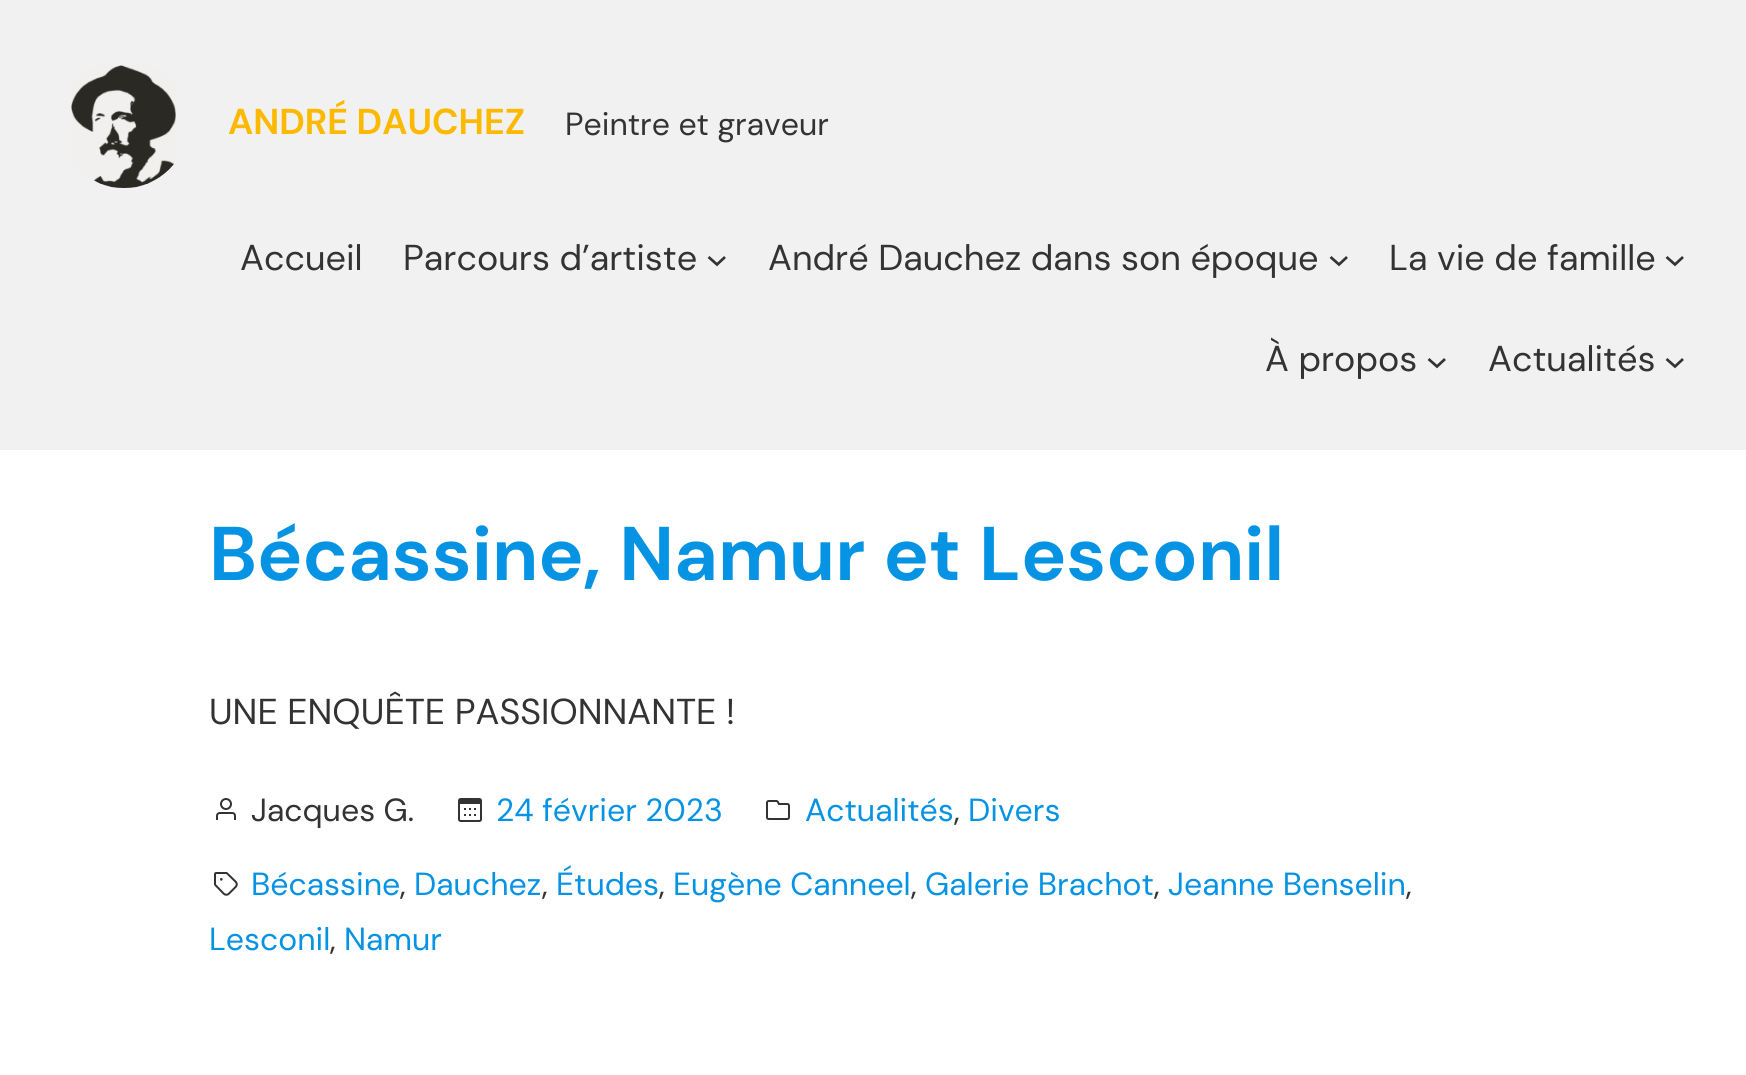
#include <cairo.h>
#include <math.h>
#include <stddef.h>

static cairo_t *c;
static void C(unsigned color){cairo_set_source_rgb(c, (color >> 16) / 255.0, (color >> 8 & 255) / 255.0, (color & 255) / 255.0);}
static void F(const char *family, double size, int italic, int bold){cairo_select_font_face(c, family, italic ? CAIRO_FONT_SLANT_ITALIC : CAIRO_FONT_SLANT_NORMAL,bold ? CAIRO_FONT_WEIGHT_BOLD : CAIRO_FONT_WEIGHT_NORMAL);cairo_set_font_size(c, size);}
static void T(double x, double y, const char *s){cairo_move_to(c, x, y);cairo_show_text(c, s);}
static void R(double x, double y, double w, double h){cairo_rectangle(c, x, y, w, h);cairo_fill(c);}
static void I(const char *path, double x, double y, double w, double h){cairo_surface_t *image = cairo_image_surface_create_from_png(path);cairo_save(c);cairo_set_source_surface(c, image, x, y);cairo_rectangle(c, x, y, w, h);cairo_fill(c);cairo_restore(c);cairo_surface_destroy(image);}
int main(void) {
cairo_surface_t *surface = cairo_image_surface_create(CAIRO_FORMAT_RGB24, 1746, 1075);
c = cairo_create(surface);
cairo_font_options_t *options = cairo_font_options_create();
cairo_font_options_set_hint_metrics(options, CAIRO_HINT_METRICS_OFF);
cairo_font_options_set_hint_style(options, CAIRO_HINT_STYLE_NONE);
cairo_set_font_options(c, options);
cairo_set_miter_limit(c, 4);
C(0xffffff);
cairo_paint(c);
C(0xf1f1f1);
R(0,0,1746,450);
I("1.png",71,65,105,123);
F("DM Sans",36,0,1);
C(0xfcb900);
T(228,134,"ANDRÉ DAUCHEZ");
F("DM Sans",32,0,0);
C(0x333333);
T(565,135,"Peintre et graveur");
F("DM Sans",36,0,0);
T(240,270,"Accueil");
T(403,270,"Parcours d’artiste");
cairo_new_path(c);
cairo_move_to(c,708.5,257);
cairo_line_to(c,717,264.5);
cairo_line_to(c,725,257);
cairo_set_line_width(c,2.7);
cairo_stroke(c);
T(768,270,"André Dauchez dans son époque");
cairo_new_path(c);
cairo_move_to(c,1330.5,257);
cairo_line_to(c,1339,264.5);
cairo_line_to(c,1347,257);
cairo_stroke(c);
T(1389,270,"La vie de famille");
cairo_new_path(c);
cairo_move_to(c,1666.5,257);
cairo_line_to(c,1675,264.5);
cairo_line_to(c,1683,257);
cairo_stroke(c);
T(1265,371,"À propos");
cairo_new_path(c);
cairo_move_to(c,1428.5,359);
cairo_line_to(c,1437,366.5);
cairo_line_to(c,1445,359);
cairo_stroke(c);
T(1488,371,"Actualités");
cairo_new_path(c);
cairo_move_to(c,1666.5,359);
cairo_line_to(c,1675,366.5);
cairo_line_to(c,1683,359);
cairo_stroke(c);
F("DM Sans",76,0,1);
C(0x0693e3);
T(209,580,"Bécassine, Namur et Lesconil");
F("DM Sans",36,0,0);
C(0x333333);
T(209,724,"UNE ENQUÊTE PASSIONNANTE !");
I("2.png",216,798,20,22);
F("DM Sans",32,0,0);
T(251,821,"Jacques G.");
I("3.png",458,798,24,24);
C(0x0693e3);
T(496,821,"24 février 2023");
I("4.png",766,800,24,20);
T(805,821,"Actualités");
T(968,821,"Divers");
C(0x333333);
T(954,821,",");
I("5.png",214,872,24,24);
C(0x0693e3);
T(251,895,"Bécassine");
C(0x333333);
T(400,895,",");
C(0x0693e3);
T(414,895,"Dauchez");
C(0x333333);
T(542,895,",");
C(0x0693e3);
T(556,895,"Études");
C(0x333333);
T(659,895,",");
C(0x0693e3);
T(673,895,"Eugène Canneel");
C(0x333333);
T(911,895,",");
C(0x0693e3);
T(925,895,"Galerie Brachot");
C(0x333333);
T(1154,895,",");
C(0x0693e3);
T(1168,895,"Jeanne Benselin");
C(0x333333);
T(1406,895,",");
C(0x0693e3);
T(209,950,"Lesconil");
C(0x333333);
T(330,950,",");
C(0x0693e3);
T(344,950,"Namur");
cairo_surface_write_to_png(surface, "o.png");
cairo_font_options_destroy(options);
cairo_destroy(c);
cairo_surface_destroy(surface);
return 0;
}
